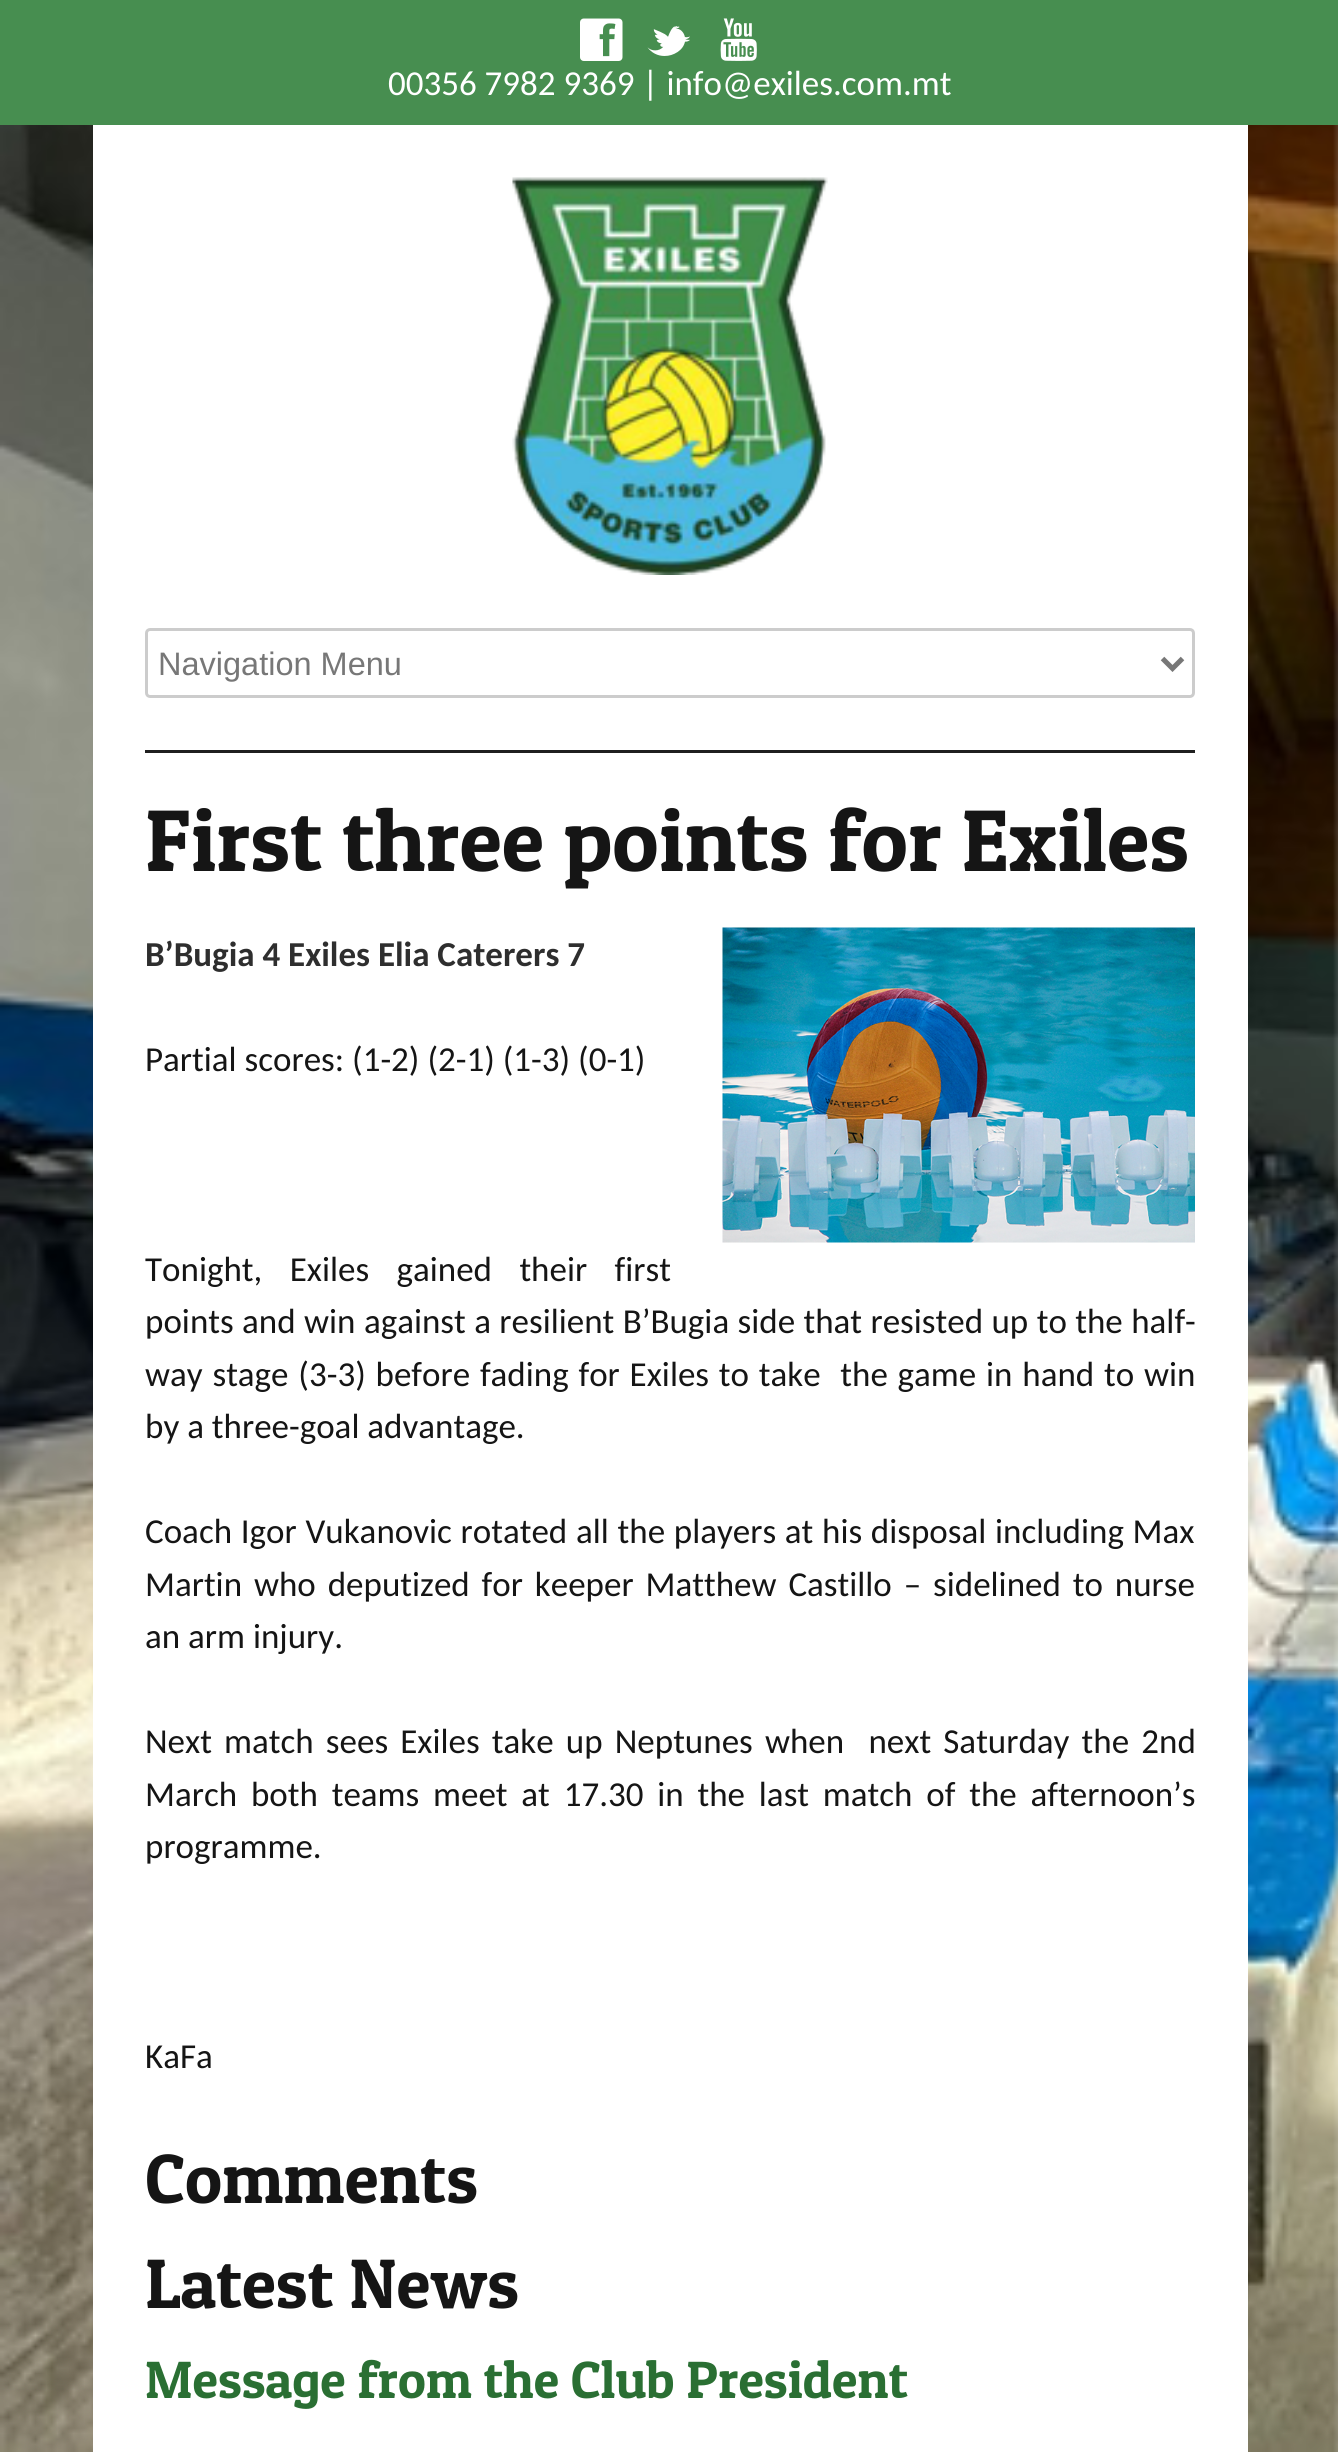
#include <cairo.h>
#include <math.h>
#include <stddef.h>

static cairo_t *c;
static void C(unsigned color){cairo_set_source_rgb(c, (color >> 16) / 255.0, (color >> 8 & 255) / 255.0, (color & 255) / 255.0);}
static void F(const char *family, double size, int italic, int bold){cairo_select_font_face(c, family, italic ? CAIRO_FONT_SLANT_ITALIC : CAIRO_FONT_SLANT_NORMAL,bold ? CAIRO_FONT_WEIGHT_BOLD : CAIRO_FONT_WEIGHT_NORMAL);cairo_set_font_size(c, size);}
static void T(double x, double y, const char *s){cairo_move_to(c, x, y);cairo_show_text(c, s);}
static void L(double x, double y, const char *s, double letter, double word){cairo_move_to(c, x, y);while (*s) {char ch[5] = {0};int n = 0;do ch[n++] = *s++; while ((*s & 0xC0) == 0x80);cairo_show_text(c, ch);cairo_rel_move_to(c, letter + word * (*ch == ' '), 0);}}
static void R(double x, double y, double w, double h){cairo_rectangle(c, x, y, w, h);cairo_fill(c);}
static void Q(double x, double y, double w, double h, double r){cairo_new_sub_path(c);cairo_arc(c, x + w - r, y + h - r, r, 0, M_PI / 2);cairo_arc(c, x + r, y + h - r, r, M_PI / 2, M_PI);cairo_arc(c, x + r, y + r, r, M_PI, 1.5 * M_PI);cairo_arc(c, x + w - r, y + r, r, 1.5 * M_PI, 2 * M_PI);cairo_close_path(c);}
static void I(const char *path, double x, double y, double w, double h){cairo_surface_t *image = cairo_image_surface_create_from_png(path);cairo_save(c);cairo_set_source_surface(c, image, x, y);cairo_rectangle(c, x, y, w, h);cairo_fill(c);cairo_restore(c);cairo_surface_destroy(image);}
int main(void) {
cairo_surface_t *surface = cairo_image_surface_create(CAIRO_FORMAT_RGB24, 1338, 2452);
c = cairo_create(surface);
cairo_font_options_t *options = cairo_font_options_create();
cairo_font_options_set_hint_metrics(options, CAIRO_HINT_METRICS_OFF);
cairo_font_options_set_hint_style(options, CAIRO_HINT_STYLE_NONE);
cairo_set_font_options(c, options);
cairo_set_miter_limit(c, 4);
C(0xffffff);
cairo_paint(c);
I("1.png",0,125,1338,2327);
C(0x478e50);
R(0,0,1338,125);
I("2.png",580,18,43,43);
I("3.png",647,26,43,30);
I("4.png",720,18,37,43);
F("Carlito",35,0,0);
C(0xffffff);
T(388,95,"00356 7982 9369 | info@exiles.com.mt");
R(93,125,1155,2327);
I("5.png",512,177,316,398);
Q(146.5,629.5,1047,67,3.5);
C(0xcccccc);
cairo_set_line_width(c,3);
cairo_stroke(c);
cairo_new_path(c);
cairo_move_to(c,1162.5,658.5);
cairo_line_to(c,1172.5,668.5);
cairo_line_to(c,1182.5,658.5);
C(0x777777);
cairo_set_line_width(c,5);
cairo_stroke(c);
F("Liberation Sans",32.5,0,0);
T(158,675,"Navigation Menu");
C(0x1f1f1f);
R(145,750,1050,3);
F("Patua One",87.5,0,0);
C(0x151515);
T(145,871,"First three points for Exiles");
F("Carlito",35,0,1);
C(0x2e2e2e);
T(145,966,"B’Bugia 4 Exiles Elia Caterers 7");
I("6.png",722,927,473,316);
F("Carlito",35,0,0);
C(0x151515);
T(145,1071,"Partial scores: (1-2) (2-1) (1-3) (0-1)");
L(145,1281,"Tonight, Exiles gained their first",0,19.5);
L(145,1333,"points and win against a resilient B’Bugia side that resisted up to the half-",0,.5);
L(145,1386,"way stage (3-3) before fading for Exiles to take  the game in hand to win",0,1.9);
T(145,1438,"by a three-goal advantage.");
L(145,1543,"Coach Igor Vukanovic rotated all the players at his disposal including Max",0,.8);
L(145,1596,"Martin who deputized for keeper Matthew Castillo – sidelined to nurse",0,4);
T(145,1648,"an arm injury.");
L(145,1753,"Next match sees Exiles take up Neptunes when  next Saturday the 2nd",0,4.25);
L(145,1806,"March both teams meet at 17.30 in the last match of the afternoon’s",0,5.9);
T(145,1858,"programme.");
T(145,2068,"KaFa");
F("Patua One",70,0,0);
T(145,2203,"Comments");
T(145,2308,"Latest News");
F("Patua One",52.5,0,0);
C(0x2a6f33);
T(145,2398,"Message from the Club President");
cairo_surface_write_to_png(surface, "o.png");
cairo_font_options_destroy(options);
cairo_destroy(c);
cairo_surface_destroy(surface);
return 0;
}
